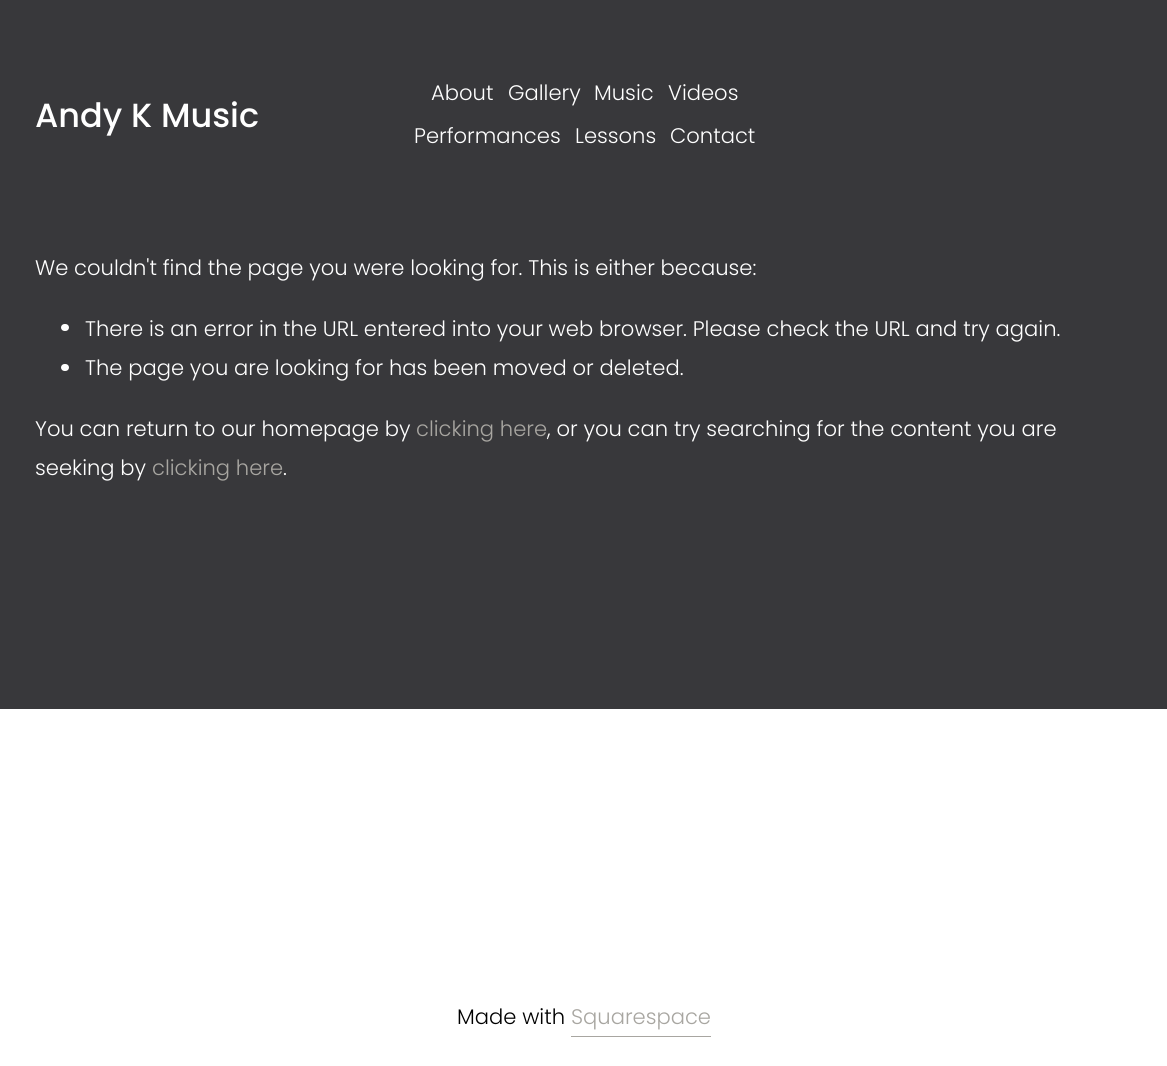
#include <cairo.h>
#include <math.h>
#include <stddef.h>

static cairo_t *c;
static void C(unsigned color){cairo_set_source_rgb(c, (color >> 16) / 255.0, (color >> 8 & 255) / 255.0, (color & 255) / 255.0);}
static void F(const char *family, double size, int italic, int bold){cairo_select_font_face(c, family, italic ? CAIRO_FONT_SLANT_ITALIC : CAIRO_FONT_SLANT_NORMAL,bold ? CAIRO_FONT_WEIGHT_BOLD : CAIRO_FONT_WEIGHT_NORMAL);cairo_set_font_size(c, size);}
static void T(double x, double y, const char *s){cairo_move_to(c, x, y);cairo_show_text(c, s);}
static void R(double x, double y, double w, double h){cairo_rectangle(c, x, y, w, h);cairo_fill(c);}
static void Q(double x, double y, double w, double h, double r){cairo_new_sub_path(c);cairo_arc(c, x + w - r, y + h - r, r, 0, M_PI / 2);cairo_arc(c, x + r, y + h - r, r, M_PI / 2, M_PI);cairo_arc(c, x + r, y + r, r, M_PI, 1.5 * M_PI);cairo_arc(c, x + w - r, y + r, r, 1.5 * M_PI, 2 * M_PI);cairo_close_path(c);}
int main(void) {
cairo_surface_t *surface = cairo_image_surface_create(CAIRO_FORMAT_RGB24, 1167, 1066);
c = cairo_create(surface);
cairo_font_options_t *options = cairo_font_options_create();
cairo_font_options_set_hint_metrics(options, CAIRO_HINT_METRICS_OFF);
cairo_font_options_set_hint_style(options, CAIRO_HINT_STYLE_NONE);
cairo_set_font_options(c, options);
cairo_set_miter_limit(c, 4);
C(0x38383b);
cairo_paint(c);
F("Poppins Medium",33.5,0,0);
C(0xffffff);
T(35,127,"Andy K Music");
F("Poppins Light",21.1,0,0);
T(431,100,"About");
T(508,100,"Gallery");
T(594,100,"Music");
T(668,100,"Videos");
T(414,143,"Performances");
T(575,143,"Lessons");
T(670,143,"Contact");
T(35,275,"We couldn't find the page you were looking for. This is either because:");
Q(61,324,8,7,3.5);
cairo_fill(c);
T(85,336,"There is an error in the URL entered into your web browser. Please check the URL and try again.");
Q(61,364,8,7,3.5);
cairo_fill(c);
T(85,375,"The page you are looking for has been moved or deleted.");
T(35,436,"You can return to our homepage by");
C(0xa8a6a1);
T(416,436,"clicking here");
C(0xffffff);
T(547,436,", or you can try searching for the content you are");
T(35,475,"seeking by");
C(0xa8a6a1);
T(152,475,"clicking here");
C(0xffffff);
T(283,475,".");
R(0,709,1167,357);
C(0x000000);
T(457,1024,"Made with");
C(0xa8a6a1);
R(571,1036,140,1);
T(571,1024,"Squarespace");
cairo_surface_write_to_png(surface, "o.png");
cairo_font_options_destroy(options);
cairo_destroy(c);
cairo_surface_destroy(surface);
return 0;
}
